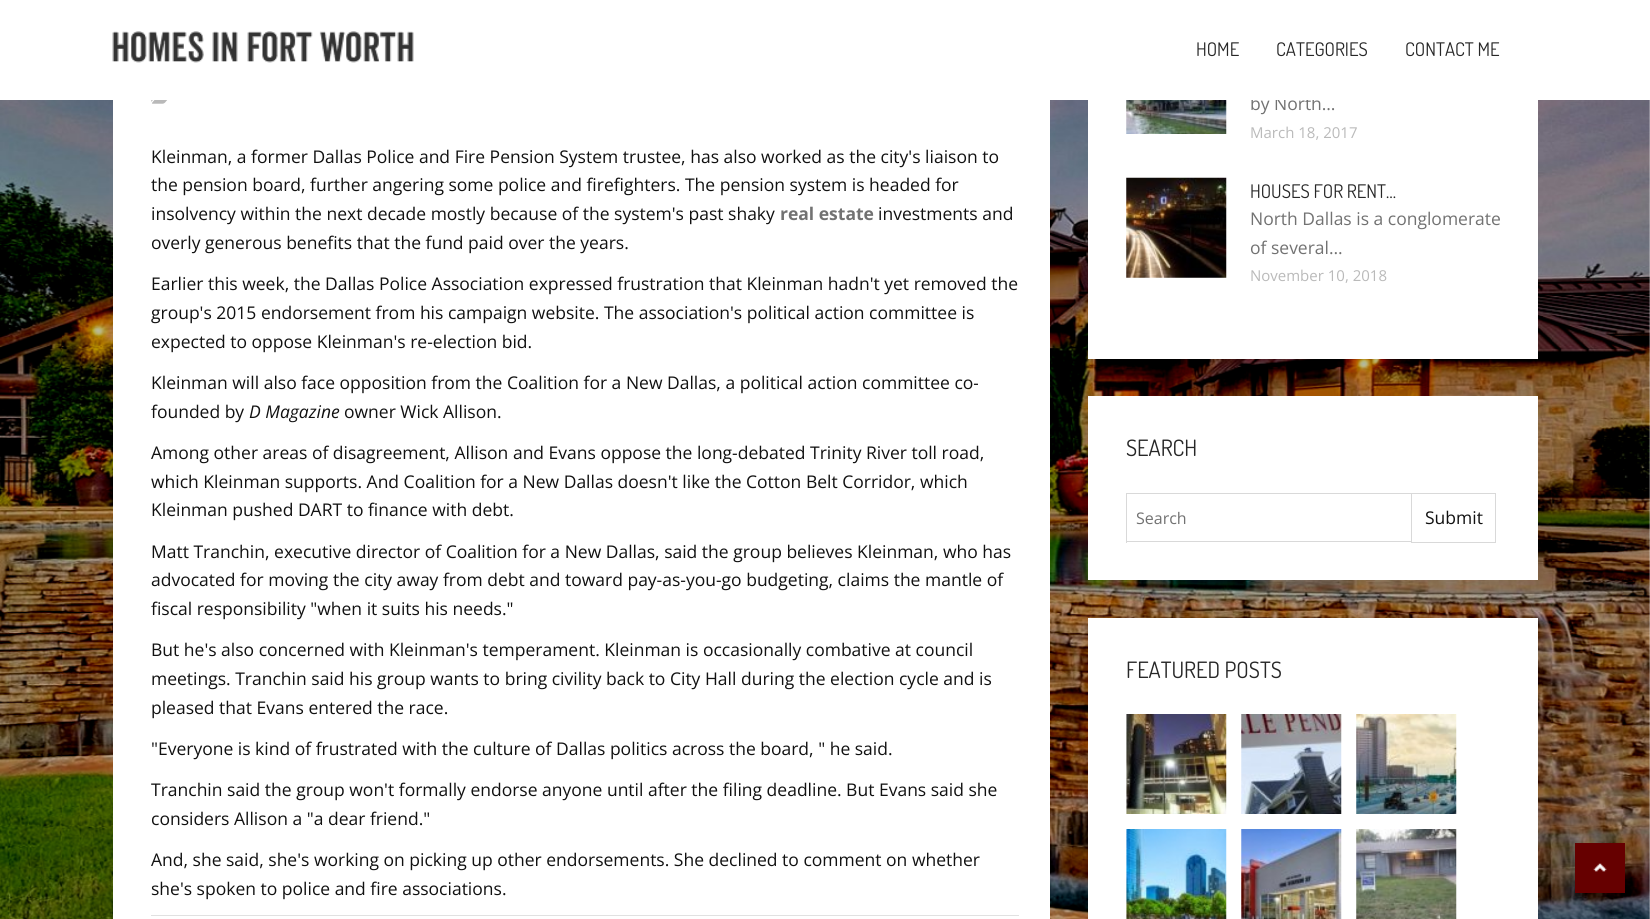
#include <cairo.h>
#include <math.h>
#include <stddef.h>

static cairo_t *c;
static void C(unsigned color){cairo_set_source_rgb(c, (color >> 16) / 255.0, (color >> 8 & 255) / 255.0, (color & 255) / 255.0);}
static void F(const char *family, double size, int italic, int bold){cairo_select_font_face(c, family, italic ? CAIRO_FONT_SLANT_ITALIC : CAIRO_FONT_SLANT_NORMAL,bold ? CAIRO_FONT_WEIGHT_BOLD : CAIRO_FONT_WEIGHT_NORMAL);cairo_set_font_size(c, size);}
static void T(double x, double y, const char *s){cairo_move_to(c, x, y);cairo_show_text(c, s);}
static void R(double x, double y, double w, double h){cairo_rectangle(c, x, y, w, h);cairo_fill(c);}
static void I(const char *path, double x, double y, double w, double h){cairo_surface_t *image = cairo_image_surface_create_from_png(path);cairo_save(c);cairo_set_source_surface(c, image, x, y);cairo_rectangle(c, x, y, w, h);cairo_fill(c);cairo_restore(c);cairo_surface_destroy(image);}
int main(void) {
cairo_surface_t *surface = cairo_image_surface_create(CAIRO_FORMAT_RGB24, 1650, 919);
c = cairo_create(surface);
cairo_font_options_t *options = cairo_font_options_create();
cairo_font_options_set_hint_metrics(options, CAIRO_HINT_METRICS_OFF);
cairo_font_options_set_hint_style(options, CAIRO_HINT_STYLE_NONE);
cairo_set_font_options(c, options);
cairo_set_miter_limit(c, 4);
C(0xffffff);
cairo_paint(c);
I("2.png",0,100,1650,819);
C(0xffffff);
R(1088,100,450,259);
F("Open Sans",17.5,0,0);
C(0x727272);
T(1250,110,"by North…");
C(0xffffff);
R(1251,96,64,4);
I("1.png",112,31,302,32);
F("Dosis",18.75,0,0);
C(0x272727);
T(1196,56,"HOME");
T(1276,56,"CATEGORIES");
T(1405,56,"CONTACT ME");
C(0xffffff);
R(113,100,937,819);
I("3.png",151,100,17,4);
F("Open Sans",17.5,0,0);
C(0x111111);
T(151,163,"Kleinman, a former Dallas Police and Fire Pension System trustee, has also worked as the city's liaison to");
T(151,191,"the pension board, further angering some police and firefighters. The pension system is headed for");
T(151,220,"insolvency within the next decade mostly because of the system's past shaky");
F("Open Sans",17.5,0,1);
C(0x727272);
T(780,220,"real estate");
F("Open Sans",17.5,0,0);
C(0x111111);
T(878,220,"investments and");
T(151,249,"overly generous benefits that the fund paid over the years.");
T(151,290,"Earlier this week, the Dallas Police Association expressed frustration that Kleinman hadn't yet removed the");
T(151,319,"group's 2015 endorsement from his campaign website. The association's political action committee is");
T(151,348,"expected to oppose Kleinman's re-election bid.");
T(151,389,"Kleinman will also face opposition from the Coalition for a New Dallas, a political action committee co-");
T(151,418,"founded by");
F("Open Sans",17.5,1,0);
T(249,418,"D Magazine");
F("Open Sans",17.5,0,0);
T(344,418,"owner Wick Allison.");
T(151,459,"Among other areas of disagreement, Allison and Evans oppose the long-debated Trinity River toll road,");
T(151,488,"which Kleinman supports. And Coalition for a New Dallas doesn't like the Cotton Belt Corridor, which");
T(151,516,"Kleinman pushed DART to finance with debt.");
T(151,558,"Matt Tranchin, executive director of Coalition for a New Dallas, said the group believes Kleinman, who has");
T(151,586,"advocated for moving the city away from debt and toward pay-as-you-go budgeting, claims the mantle of");
T(151,615,"fiscal responsibility \"when it suits his needs.\"");
T(151,656,"But he's also concerned with Kleinman's temperament. Kleinman is occasionally combative at council");
T(151,685,"meetings. Tranchin said his group wants to bring civility back to City Hall during the election cycle and is");
T(151,714,"pleased that Evans entered the race.");
T(151,755,"\"Everyone is kind of frustrated with the culture of Dallas politics across the board, \" he said.");
T(151,796,"Tranchin said the group won't formally endorse anyone until after the filing deadline. But Evans said she");
T(151,825,"considers Allison a \"a dear friend.\"");
T(151,866,"And, she said, she's working on picking up other endorsements. She declined to comment on whether");
T(151,895,"she's spoken to police and fire associations.");
C(0xe1e1e1);
R(151,915,868,1);
I("4.png",1126,100,101,34);
F("Open Sans",15,0,0);
C(0xbababa);
T(1250,138,"March 18, 2017");
I("5.png",1126,177,101,101);
F("Dosis",18.75,0,0);
C(0x272727);
T(1250,198,"HOUSES FOR RENT…");
F("Open Sans",17.5,0,0);
C(0x727272);
T(1250,225,"North Dallas is a conglomerate");
T(1250,254,"of several…");
F("Open Sans",15,0,0);
C(0xbababa);
T(1250,281,"November 10, 2018");
C(0xffffff);
R(1088,396,450,184);
F("Dosis",22.5,0,0);
C(0x272727);
T(1126,456,"SEARCH");
C(0xd9d9d9);
R(1126,493,285,1);
R(1126,541,285,1);
R(1126,493,1,50);
F("Open Sans",16,0,0);
C(0x727272);
T(1136,524,"Search");
cairo_rectangle(c,1411.5,493.5,84,49);
C(0xd9d9d9);
cairo_set_line_width(c,1);
cairo_stroke(c);
F("Open Sans",17.5,0,0);
C(0x111111);
T(1425,524,"Submit");
C(0xffffff);
R(1088,618,450,301);
F("Dosis",22.5,0,0);
C(0x272727);
T(1126,678,"FEATURED POSTS");
I("6.png",1126,714,101,100);
I("7.png",1241,714,101,100);
I("8.png",1356,714,101,100);
I("9.png",1126,829,101,90);
I("10.png",1241,829,101,90);
I("11.png",1356,829,101,90);
C(0x660000);
R(1575,843,50,50);
I("12.png",1593,863,14,9);
cairo_surface_write_to_png(surface, "o.png");
cairo_font_options_destroy(options);
cairo_destroy(c);
cairo_surface_destroy(surface);
return 0;
}
